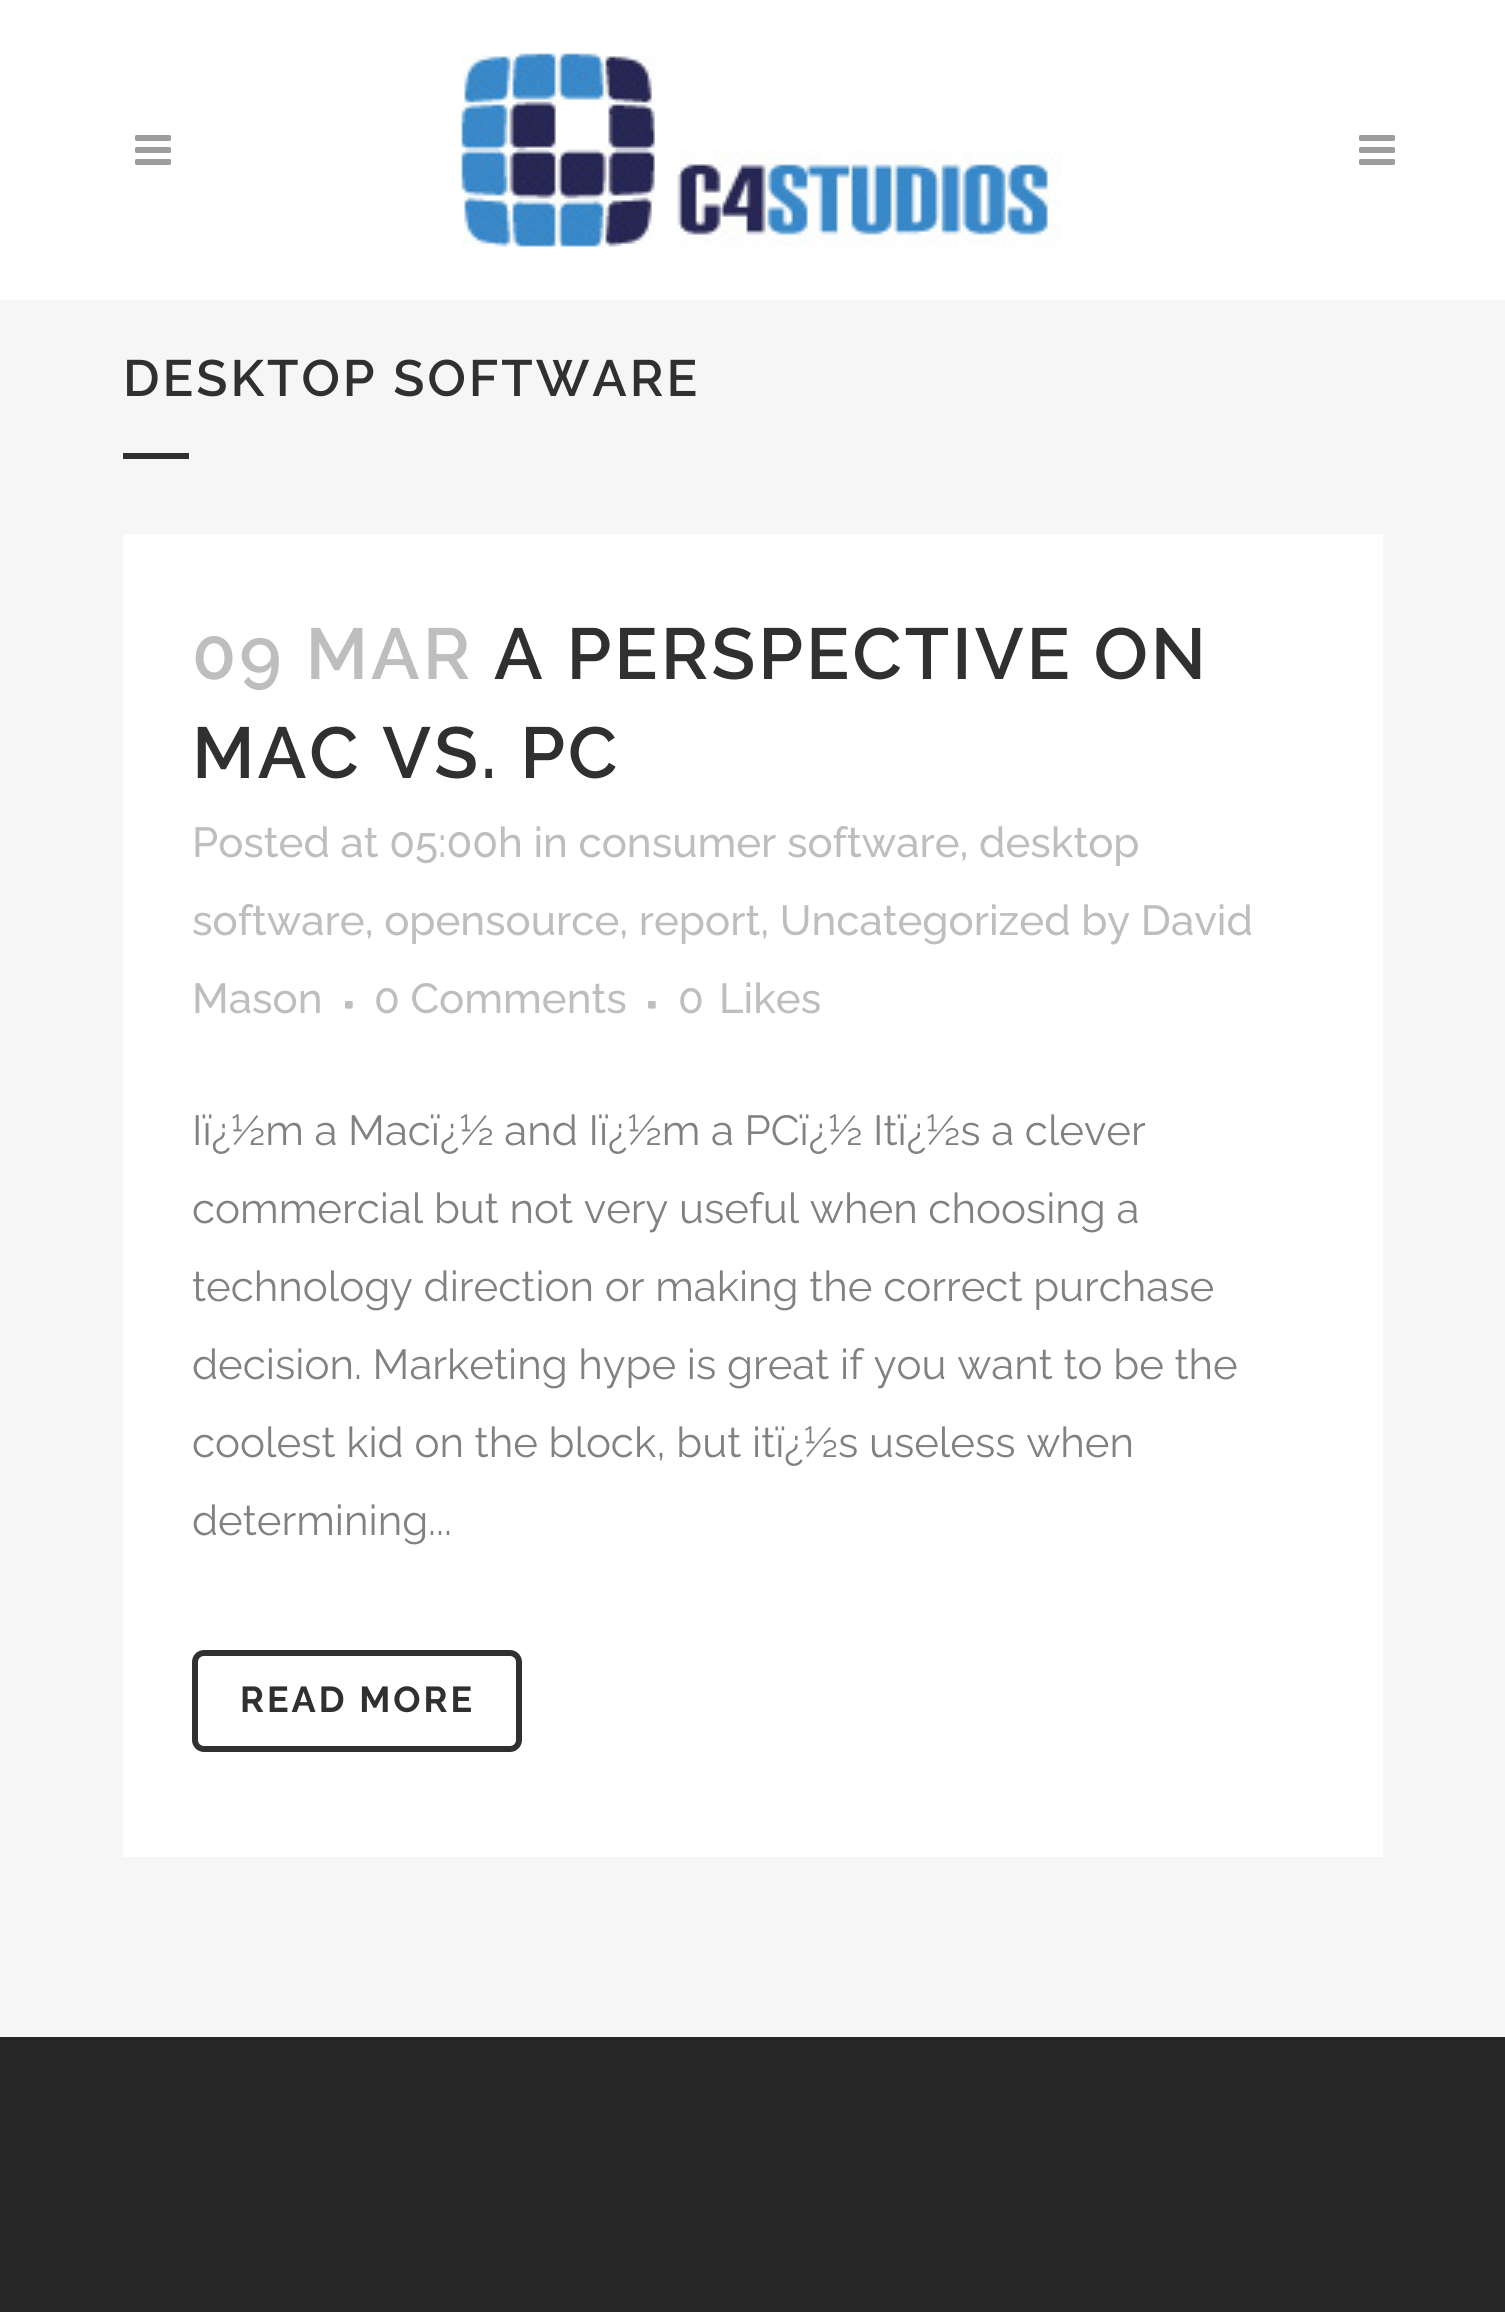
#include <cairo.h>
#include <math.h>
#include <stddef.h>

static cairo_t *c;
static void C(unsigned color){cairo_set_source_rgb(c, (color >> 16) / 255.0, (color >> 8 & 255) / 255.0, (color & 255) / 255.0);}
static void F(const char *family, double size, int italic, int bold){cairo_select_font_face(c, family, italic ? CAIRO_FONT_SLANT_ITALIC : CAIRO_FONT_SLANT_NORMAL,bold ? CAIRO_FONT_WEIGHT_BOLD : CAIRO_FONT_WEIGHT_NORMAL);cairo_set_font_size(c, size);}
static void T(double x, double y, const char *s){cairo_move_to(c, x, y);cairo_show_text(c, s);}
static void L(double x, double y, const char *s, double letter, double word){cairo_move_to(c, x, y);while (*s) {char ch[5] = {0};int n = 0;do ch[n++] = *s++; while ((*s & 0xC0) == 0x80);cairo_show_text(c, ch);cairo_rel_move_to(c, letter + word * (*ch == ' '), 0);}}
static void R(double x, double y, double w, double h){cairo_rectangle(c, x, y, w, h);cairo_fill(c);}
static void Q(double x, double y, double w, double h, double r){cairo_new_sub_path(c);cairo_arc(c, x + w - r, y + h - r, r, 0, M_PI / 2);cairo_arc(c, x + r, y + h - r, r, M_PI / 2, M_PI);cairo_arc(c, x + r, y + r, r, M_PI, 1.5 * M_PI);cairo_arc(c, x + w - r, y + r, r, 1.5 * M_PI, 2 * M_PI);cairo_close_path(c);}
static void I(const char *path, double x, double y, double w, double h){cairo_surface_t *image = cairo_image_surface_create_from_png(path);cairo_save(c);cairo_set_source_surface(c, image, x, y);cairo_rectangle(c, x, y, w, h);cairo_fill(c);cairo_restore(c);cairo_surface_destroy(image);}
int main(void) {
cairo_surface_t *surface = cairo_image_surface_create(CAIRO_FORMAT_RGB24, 1505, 2312);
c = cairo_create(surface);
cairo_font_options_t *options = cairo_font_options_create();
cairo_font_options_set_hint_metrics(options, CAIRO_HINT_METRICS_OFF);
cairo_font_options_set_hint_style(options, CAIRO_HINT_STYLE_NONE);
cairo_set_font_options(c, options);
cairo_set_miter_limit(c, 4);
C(0xf6f6f6);
cairo_paint(c);
C(0xffffff);
R(0,0,1505,300);
I("1.png",135,135,36,30);
I("2.png",461,53,601,194);
I("1.png",1359,135,36,30);
F("Raleway SemiBold",51,0,0);
C(0x303030);
L(123,396,"DESKTOP SOFTWARE",3,0);
R(123,453,66,6);
C(0xffffff);
R(123,534,1260,1323);
F("Raleway SemiBold",72,0,0);
C(0xbebebe);
L(192,679,"09 MAR",3,0);
C(0x303030);
L(494,679,"A PERSPECTIVE ON",3,0);
L(192,778,"MAC VS. PC",3,0);
F("Raleway Medium",42,0,0);
C(0xbebebe);
T(192,857,"Posted at 05:00h in consumer software, desktop");
T(192,935,"software, opensource, report, Uncategorized by David");
T(192,1013,"Mason");
I("3.png",345,1000,8,9);
T(374,1013,"0 Comments");
I("3.png",648,1000,8,9);
T(678,1013,"0");
T(719,1013,"Likes");
F("Raleway",42,0,0);
C(0x818181);
T(192,1145,"Iï¿½m a Macï¿½ and Iï¿½m a PCï¿½ Itï¿½s a clever");
T(192,1223,"commercial but not very useful when choosing a");
T(192,1301,"technology direction or making the correct purchase");
T(192,1379,"decision. Marketing hype is great if you want to be the");
T(192,1457,"coolest kid on the block, but itï¿½s useless when");
T(192,1535,"determining...");
Q(195,1653,324,96,9);
C(0x303030);
cairo_set_line_width(c,6);
cairo_stroke(c);
F("Raleway",36,0,1);
L(240,1712,"READ MORE",3,0);
C(0x262626);
R(0,2037,1505,275);
cairo_surface_write_to_png(surface, "o.png");
cairo_font_options_destroy(options);
cairo_destroy(c);
cairo_surface_destroy(surface);
return 0;
}
